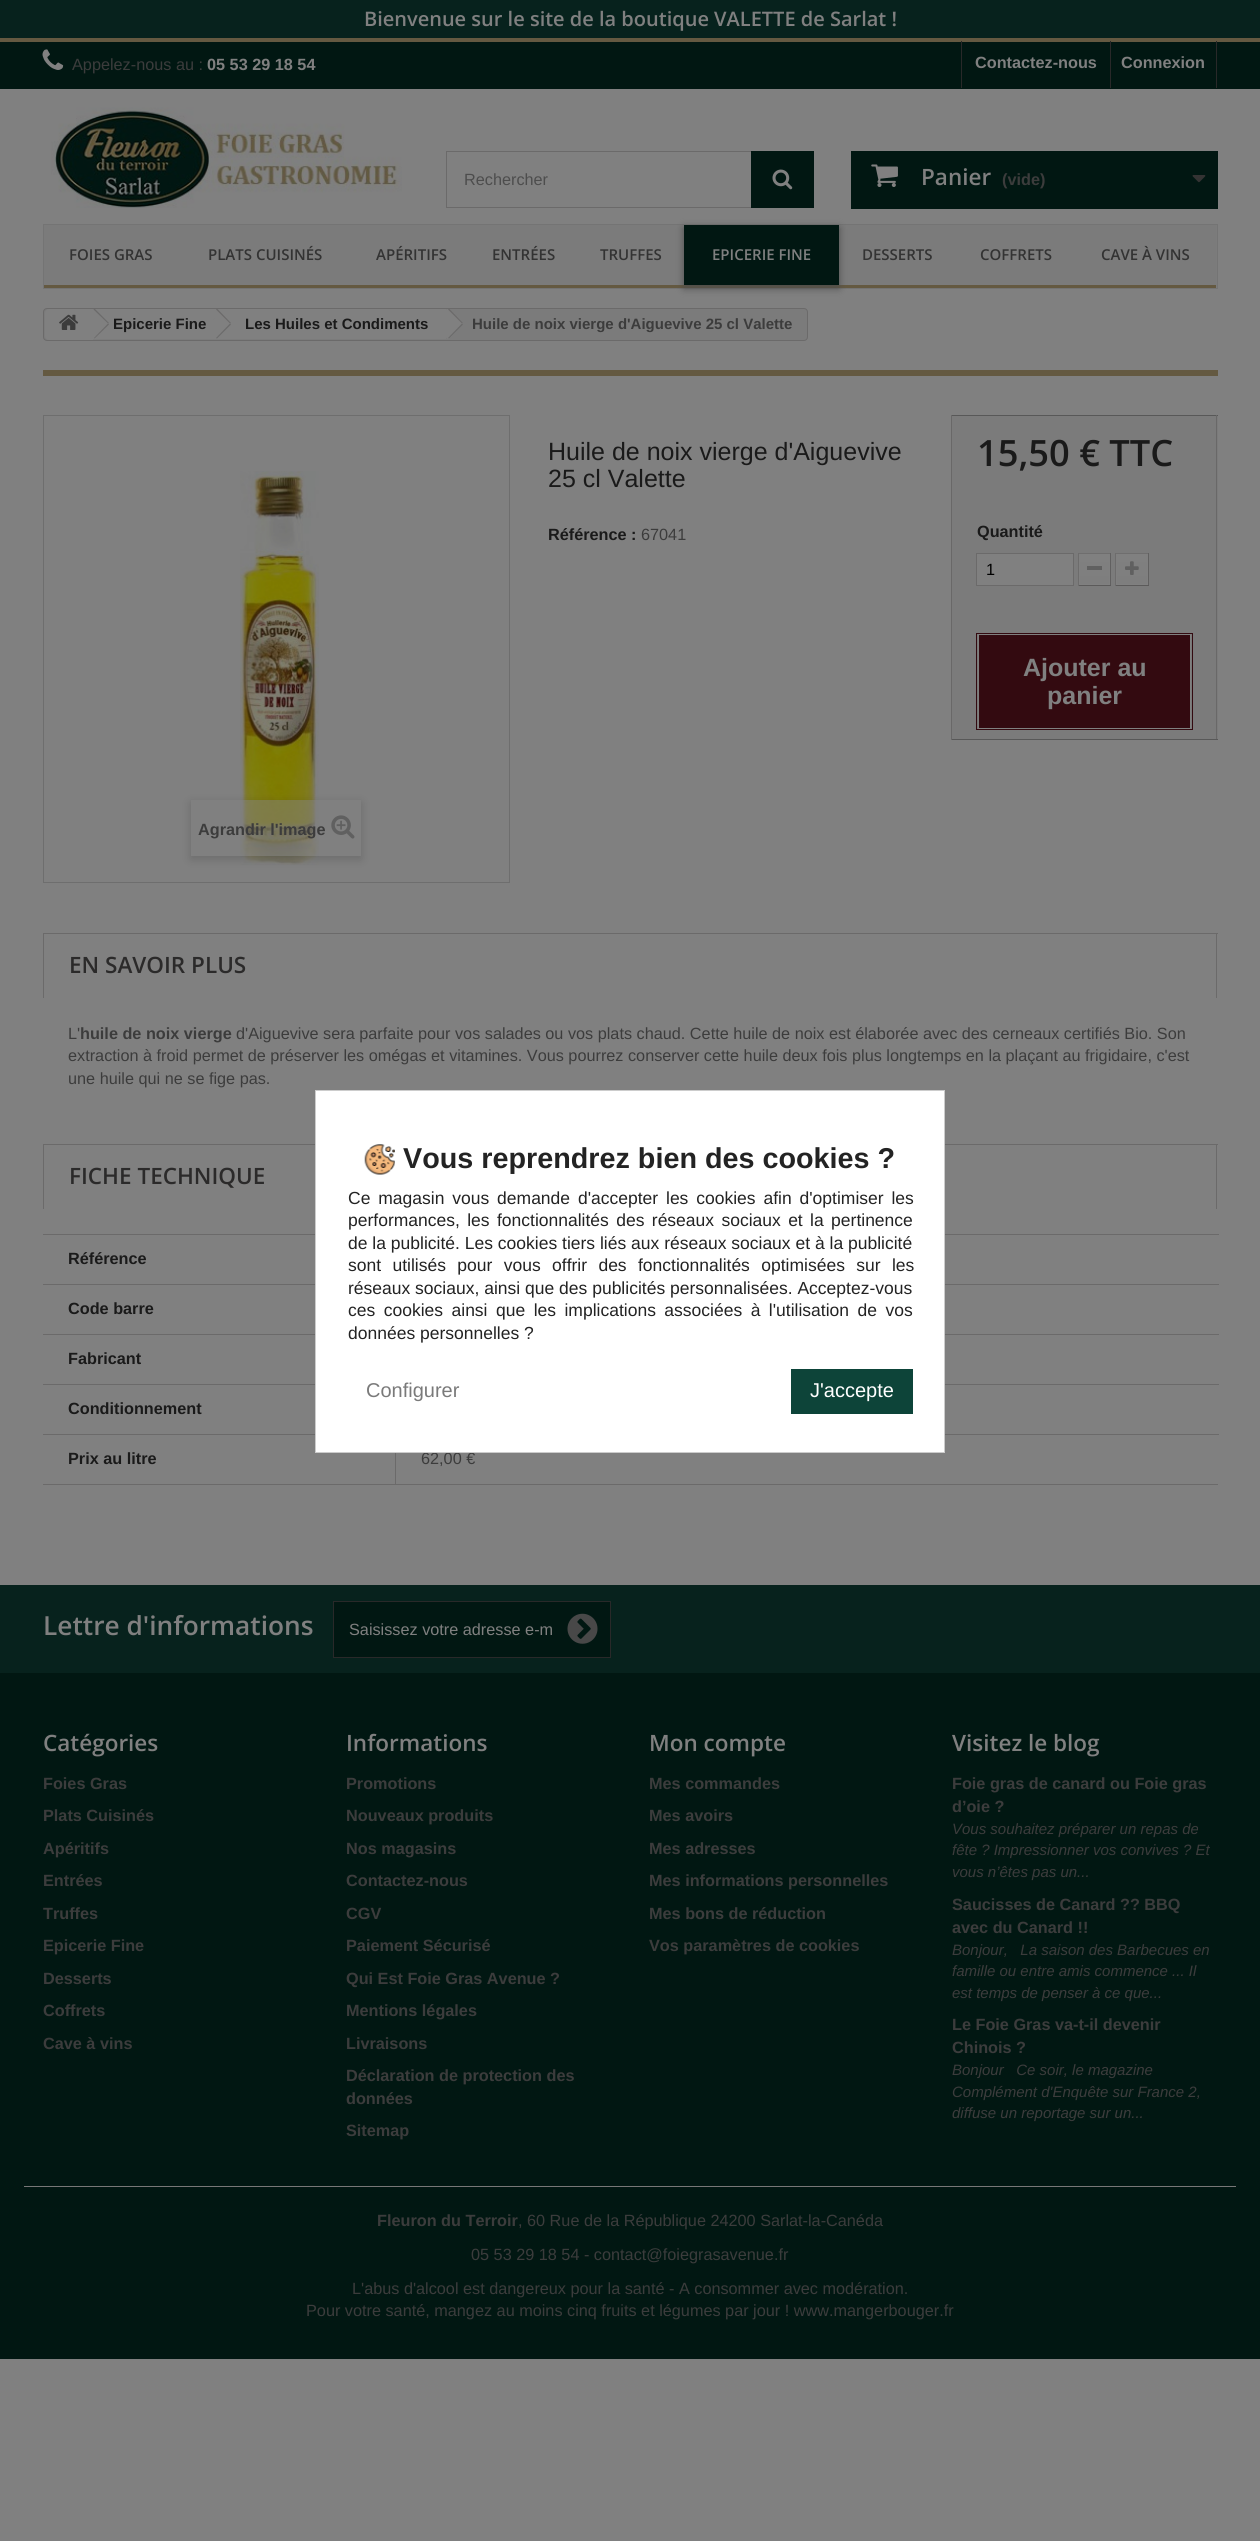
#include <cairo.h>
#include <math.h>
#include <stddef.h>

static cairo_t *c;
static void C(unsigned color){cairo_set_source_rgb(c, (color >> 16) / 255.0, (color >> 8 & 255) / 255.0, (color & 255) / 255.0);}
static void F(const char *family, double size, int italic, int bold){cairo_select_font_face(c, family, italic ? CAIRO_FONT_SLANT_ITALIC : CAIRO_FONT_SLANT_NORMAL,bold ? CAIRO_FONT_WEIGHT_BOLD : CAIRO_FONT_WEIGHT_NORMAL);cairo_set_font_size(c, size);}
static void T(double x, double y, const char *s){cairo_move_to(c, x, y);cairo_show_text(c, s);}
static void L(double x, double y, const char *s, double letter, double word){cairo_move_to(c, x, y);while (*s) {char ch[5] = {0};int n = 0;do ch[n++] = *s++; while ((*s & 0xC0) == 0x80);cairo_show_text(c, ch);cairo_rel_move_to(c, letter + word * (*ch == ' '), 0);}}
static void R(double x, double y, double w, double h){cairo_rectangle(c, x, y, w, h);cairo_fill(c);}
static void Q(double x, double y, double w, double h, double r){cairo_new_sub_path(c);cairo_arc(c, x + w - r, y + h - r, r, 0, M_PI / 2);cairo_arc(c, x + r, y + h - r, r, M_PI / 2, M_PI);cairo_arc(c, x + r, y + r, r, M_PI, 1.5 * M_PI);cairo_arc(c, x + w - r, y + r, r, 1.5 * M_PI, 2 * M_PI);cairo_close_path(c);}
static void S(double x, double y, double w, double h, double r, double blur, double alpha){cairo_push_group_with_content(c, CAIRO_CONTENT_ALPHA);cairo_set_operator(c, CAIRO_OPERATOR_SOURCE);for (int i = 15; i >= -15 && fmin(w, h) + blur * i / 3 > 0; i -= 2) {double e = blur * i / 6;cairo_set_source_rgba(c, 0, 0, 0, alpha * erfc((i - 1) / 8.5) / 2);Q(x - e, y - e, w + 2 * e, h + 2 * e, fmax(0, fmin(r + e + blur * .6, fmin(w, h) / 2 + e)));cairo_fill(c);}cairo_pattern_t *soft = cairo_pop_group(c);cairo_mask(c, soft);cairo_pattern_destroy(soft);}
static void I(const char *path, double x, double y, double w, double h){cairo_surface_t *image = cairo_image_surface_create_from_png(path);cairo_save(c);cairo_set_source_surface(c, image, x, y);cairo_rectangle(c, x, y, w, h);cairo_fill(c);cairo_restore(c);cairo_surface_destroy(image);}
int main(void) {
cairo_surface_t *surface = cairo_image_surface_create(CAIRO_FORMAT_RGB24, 1260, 2541);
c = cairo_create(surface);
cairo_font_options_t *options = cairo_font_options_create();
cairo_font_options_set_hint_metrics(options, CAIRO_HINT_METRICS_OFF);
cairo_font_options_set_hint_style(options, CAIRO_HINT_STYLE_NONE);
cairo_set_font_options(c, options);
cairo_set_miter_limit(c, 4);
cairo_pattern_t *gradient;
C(0x808080);
cairo_paint(c);
C(0x07221d);
R(0,0,1260,38);
F("Open Sans SemiBold",20,0,0);
C(0x808080);
T(364,26,"Bienvenue sur le site de la boutique VALETTE de Sarlat !");
C(0x011712);
R(0,42,1260,47);
C(0x645941);
R(0,38,1260,4);
I("1.png",42,49,22,21);
F("Liberation Sans",16.25,0,0);
C(0x3c3c3c);
T(72,70,"Appelez-nous au :");
F("Liberation Sans",16.25,0,1);
C(0x808080);
T(207,70,"05 53 29 18 54");
C(0x292929);
R(961,41,1,47);
C(0x808080);
T(975,68,"Contactez-nous");
C(0x292929);
R(1216,41,1,47);
R(1110,41,1,47);
C(0x808080);
T(1121,68,"Connexion");
I("2.png",51,107,351,101);
cairo_rectangle(c,446.5,151.5,367,56);
C(0x6b6a6a);
cairo_set_line_width(c,1);
cairo_stroke(c);
F("Liberation Sans",16.25,0,0);
C(0x4d4d4d);
T(464,185,"Rechercher");
C(0x011712);
R(751,151,63,57);
I("3.png",772,169,21,21);
R(851,151,367,58);
I("4.png",871,164,27,23);
F("Open Sans SemiBold",22.5,0,0);
C(0x808080);
T(921,185,"Panier");
F("Liberation Sans",16.25,0,1);
C(0x3c3c3c);
T(1002,185,"(vide)");
I("5.png",1192,175,14,8);
C(0x7c7c7c);
R(1216,225,1,63);
cairo_rectangle(c,43.5,224.5,1174,64);
C(0x747474);
cairo_stroke(c);
C(0x645941);
R(44,285,1172,3);
C(0x7b7b7b);
R(44,225,640,60);
F("Open Sans SemiBold",15,0,0);
C(0x333333);
T(69,260,"FOIES GRAS");
T(208,260,"PLATS CUISINÉS");
T(376,260,"APÉRITIFS");
T(492,260,"ENTRÉES");
T(600,260,"TRUFFES");
C(0x7b7b7b);
R(839,225,377,60);
C(0x4d4d4d);
S(684,228,155,60,0,4,1);
C(0x011712);
R(684,225,155,60);
C(0x808080);
T(712,260,"EPICERIE FINE");
C(0x333333);
T(862,260,"DESSERTS");
T(980,260,"COFFRETS");
T(1101,260,"CAVE À VINS");
C(0x7b7b7b);
Q(43.5,308.5,764,32,3.5);
cairo_fill_preserve(c);
C(0x6b6a6a);
cairo_stroke(c);
C(0x808080);
cairo_new_path(c);
cairo_move_to(c,49,309);
cairo_line_to(c,93,309);
cairo_line_to(c,93,340);
cairo_line_to(c,49,340);
cairo_curve_to(c,47,340,45,338,45,336);
cairo_line_to(c,45,313);
cairo_curve_to(c,45,311,47,309,49,309);
cairo_close_path(c);
cairo_fill(c);
I("6.png",59,314,20,16);
R(93,309,125,30);
C(0x6b6a6a);
cairo_new_path(c);
cairo_move_to(c,94.5,308.5);
cairo_line_to(c,109,323);
cairo_line_to(c,108,323.5);
cairo_line_to(c,93.5,309.5);
cairo_close_path(c);
cairo_fill(c);
cairo_new_path(c);
cairo_move_to(c,108,323.5);
cairo_line_to(c,109,324.5);
cairo_line_to(c,94.5,338.5);
cairo_line_to(c,94,338);
cairo_close_path(c);
cairo_fill(c);
F("Liberation Sans",15,0,1);
C(0x1a1a1a);
T(113,329,"Epicerie Fine");
C(0x808080);
cairo_new_path(c);
cairo_move_to(c,227.5,309.5);
cairo_line_to(c,227,309);
cairo_line_to(c,224.5,309);
cairo_line_to(c,224,309.5);
cairo_line_to(c,212,322);
cairo_curve_to(c,211,323,211,324.5,212,325.5);
cairo_line_to(c,224,338);
cairo_curve_to(c,225,339,226.5,339,227.5,338);
cairo_line_to(c,240,325.5);
cairo_curve_to(c,241,324.5,241,323,240,322);
cairo_close_path(c);
cairo_fill(c);
R(218,309,228,30);
C(0x6b6a6a);
cairo_new_path(c);
cairo_move_to(c,217,308.5);
cairo_line_to(c,231,323);
cairo_line_to(c,230,323.5);
cairo_line_to(c,216,309.5);
cairo_close_path(c);
cairo_fill(c);
cairo_new_path(c);
cairo_move_to(c,230,323.5);
cairo_line_to(c,231,324.5);
cairo_line_to(c,217,338.5);
cairo_line_to(c,216,338);
cairo_close_path(c);
cairo_fill(c);
C(0x1a1a1a);
T(245,329,"Les Huiles et Condiments");
C(0x808080);
cairo_new_path(c);
cairo_move_to(c,450,309.5);
cairo_line_to(c,449.5,309);
cairo_line_to(c,447,309);
cairo_line_to(c,446.5,309.5);
cairo_line_to(c,434,322);
cairo_curve_to(c,433,323,433,324.5,434,325.5);
cairo_line_to(c,446.5,338);
cairo_curve_to(c,447.5,339,449,339,450,338);
cairo_line_to(c,462,325.5);
cairo_curve_to(c,463,324.5,463,323,462,322);
cairo_close_path(c);
cairo_fill(c);
C(0x6b6a6a);
cairo_new_path(c);
cairo_move_to(c,449,308.5);
cairo_line_to(c,463,323);
cairo_line_to(c,462,323.5);
cairo_line_to(c,448,309.5);
cairo_close_path(c);
cairo_fill(c);
cairo_new_path(c);
cairo_move_to(c,462,323.5);
cairo_line_to(c,463,324.5);
cairo_line_to(c,449,338.5);
cairo_line_to(c,448,338);
cairo_close_path(c);
cairo_fill(c);
C(0x3c3c3c);
T(472,329,"Huile de noix vierge d'Aiguevive 25 cl Valette");
C(0x645941);
R(43,370,1175,6);
F("Liberation Sans",25,0,0);
C(0x1a1a1a);
T(548,460,"Huile de noix vierge d'Aiguevive");
T(548,487,"25 cl Valette");
F("Liberation Sans",16.25,0,1);
T(548,540,"Référence :");
F("Liberation Sans",16.25,0,0);
C(0x3c3c3c);
T(641,540,"67041");
C(0x7b7b7b);
R(952,416,266,323);
C(0x585858);
R(951,415,267,1);
C(0x696868);
R(1216,415,1,325);
C(0x585858);
R(951,739,267,1);
C(0x696868);
R(951,415,1,325);
F("Open Sans SemiBold",36.25,0,0);
C(0x1a1a1a);
T(977,466,"15,50 € TTC");
F("Liberation Sans",16.25,0,1);
T(977,537,"Quantité");
C(0x808080);
cairo_rectangle(c,976.5,553.5,97,32);
cairo_fill_preserve(c);
C(0x6b6a6a);
cairo_stroke(c);
F("Liberation Sans",16.25,0,0);
C(0x000000);
T(986,575,"1");
C(0x6f6e6e);
R(1078,553,33,1);
C(0x616060);
R(1110,553,1,33);
C(0x5b5a5a);
R(1078,585,33,1);
C(0x6d6c6c);
R(1078,553,1,33);
gradient = cairo_pattern_create_linear(1094,555,1094,584);
cairo_pattern_add_color_stop_rgba(gradient,0,0.502,0.502,0.502,1);
cairo_pattern_add_color_stop_rgba(gradient,1,0.494,0.494,0.494,1);
cairo_set_source(c,gradient);
cairo_pattern_destroy(gradient);
R(1080,555,29,29);
cairo_rectangle(c,1079.5,554.5,30,30);
C(0x808080);
cairo_stroke(c);
C(0x606060);
R(1087,566,15,4);
C(0x6f6e6e);
R(1115,553,34,1);
C(0x616060);
R(1148,553,1,33);
C(0x5b5a5a);
R(1115,585,34,1);
C(0x6d6c6c);
R(1115,553,1,33);
gradient = cairo_pattern_create_linear(1132,555,1132,584);
cairo_pattern_add_color_stop_rgba(gradient,0,0.502,0.502,0.502,1);
cairo_pattern_add_color_stop_rgba(gradient,1,0.494,0.494,0.494,1);
cairo_set_source(c,gradient);
cairo_pattern_destroy(gradient);
R(1117,555,30,29);
cairo_rectangle(c,1116.5,554.5,31,30);
C(0x808080);
cairo_stroke(c);
I("7.png",1125,561,14,14);
C(0x787878);
cairo_rectangle(c,976.5,633.5,216,96);
cairo_fill_preserve(c);
C(0x330a10);
cairo_stroke(c);
cairo_rectangle(c,978.5,634.5,212,94);
cairo_fill_preserve(c);
C(0x808080);
cairo_stroke(c);
F("Liberation Sans",25,0,1);
T(1023,676,"Ajouter au");
T(1047,704,"panier");
cairo_rectangle(c,43.5,415.5,466,467);
C(0x6e6e6e);
cairo_stroke(c);
I("8.png",240,471,79,394);
cairo_save(c);
cairo_set_fill_rule(c,CAIRO_FILL_RULE_EVEN_ODD);
cairo_new_path(c);
cairo_move_to(c,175,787);
cairo_line_to(c,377,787);
cairo_line_to(c,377,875);
cairo_line_to(c,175,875);
cairo_close_path(c);
cairo_move_to(c,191,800);
cairo_line_to(c,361,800);
cairo_line_to(c,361,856);
cairo_line_to(c,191,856);
cairo_close_path(c);
cairo_clip(c);
C(0x000000);
S(191,803,170,56,0,5,.16);
cairo_restore(c);
cairo_set_source_rgba(c,0.502,0.502,0.502,0.5);
R(240,800,79,56);
F("Liberation Sans",16.25,0,1);
C(0x3c3c3c);
T(198,835,"Agrandir l'image");
I("9.png",331,815,24,24);
C(0x6b6a6a);
R(43,933,1175,1);
R(1216,933,1,65);
R(43,933,1,65);
F("Open Sans SemiBold",22.5,0,0);
C(0x2b2a2a);
T(69,973,"EN SAVOIR PLUS");
F("Liberation Sans",16.25,0,0);
C(0x3c3c3c);
T(68,1039,"L'");
F("Liberation Sans",16.25,0,1);
T(80,1039,"huile de noix vierge");
F("Liberation Sans",16.25,0,0);
T(236,1039,"d'Aiguevive sera parfaite pour vos salades ou vos plats chaud. Cette huile de noix est élaborée avec des cerneaux certifiés Bio. Son");
T(68,1061,"extraction à froid permet de préserver les omégas et vitamines. Vous pourrez conserver cette huile deux fois plus longtemps en la plaçant au frigidaire, c'est");
T(68,1084,"une huile qui ne se fige pas.");
C(0x6b6a6a);
R(43,1144,1175,1);
R(1216,1144,1,65);
R(43,1144,1,65);
F("Open Sans SemiBold",22.5,0,0);
C(0x2b2a2a);
T(69,1184,"FICHE TECHNIQUE");
C(0x6b6a6a);
R(43,1484,1175,1);
R(43,1234,1176,1);
F("Liberation Sans",16.25,0,1);
C(0x1a1a1a);
T(68,1264,"Référence");
C(0x6b6a6a);
R(43,1284,1176,1);
C(0x1a1a1a);
T(68,1314,"Code barre");
C(0x6b6a6a);
R(43,1334,1176,1);
C(0x1a1a1a);
T(68,1364,"Fabricant");
C(0x6b6a6a);
R(43,1384,1176,1);
C(0x1a1a1a);
T(68,1414,"Conditionnement");
C(0x6b6a6a);
R(43,1434,1176,1);
R(395,1453,1,32);
C(0x1a1a1a);
T(68,1464,"Prix au litre");
F("Liberation Sans",16.25,0,0);
C(0x3c3c3c);
T(421,1464,"62,00 €");
C(0x011712);
R(0,1673,1260,686);
C(0x07221d);
R(0,1585,1260,88);
F("Open Sans SemiBold",26.25,0,0);
C(0x808080);
T(43,1635,"Lettre d'informations");
C(0x011712);
cairo_rectangle(c,333.5,1601.5,277,56);
cairo_fill_preserve(c);
C(0x292929);
cairo_stroke(c);
F("Liberation Sans",16.25,0,0);
C(0x808080);
T(349,1635,"Saisissez votre adresse e-m");
I("10.png",567,1613,31,31);
F("Open Sans SemiBold",22.5,0,0);
T(43,1751,"Catégories");
F("Liberation Sans",16.25,0,1);
C(0x3c3c3c);
T(43,1789,"Foies Gras");
T(43,1821,"Plats Cuisinés");
T(43,1854,"Apéritifs");
T(43,1886,"Entrées");
T(43,1919,"Truffes");
T(43,1951,"Epicerie Fine");
T(43,1984,"Desserts");
T(43,2016,"Coffrets");
T(43,2049,"Cave à vins");
F("Open Sans SemiBold",22.5,0,0);
C(0x808080);
T(346,1751,"Informations");
F("Liberation Sans",16.25,0,1);
C(0x3c3c3c);
T(346,1789,"Promotions");
T(346,1821,"Nouveaux produits");
T(346,1854,"Nos magasins");
T(346,1886,"Contactez-nous");
T(346,1919,"CGV");
T(346,1951,"Paiement Sécurisé");
T(346,1984,"Qui Est Foie Gras Avenue ?");
T(346,2016,"Mentions légales");
T(346,2049,"Livraisons");
T(346,2081,"Déclaration de protection des");
T(346,2104,"données");
T(346,2136,"Sitemap");
F("Open Sans SemiBold",22.5,0,0);
C(0x808080);
T(649,1751,"Mon compte");
F("Liberation Sans",16.25,0,1);
C(0x3c3c3c);
T(649,1789,"Mes commandes");
T(649,1821,"Mes avoirs");
T(649,1854,"Mes adresses");
T(649,1886,"Mes informations personnelles");
T(649,1919,"Mes bons de réduction");
T(649,1951,"Vos paramètres de cookies");
F("Open Sans SemiBold",22.5,0,0);
C(0x808080);
T(952,1751,"Visitez le blog");
F("Liberation Sans",16.25,0,1);
C(0x3c3c3c);
T(952,1789,"Foie gras de canard ou Foie gras");
T(952,1812,"d’oie ?");
F("Liberation Sans",15,1,0);
T(952,1834,"Vous souhaitez préparer un repas de");
T(952,1855,"fête ? Impressionner vos convives ? Et");
T(952,1877,"vous n’êtes pas un...");
F("Liberation Sans",16.25,0,1);
T(952,1910,"Saucisses de Canard ?\077 BBQ");
T(952,1933,"avec du Canard !!");
F("Liberation Sans",15,1,0);
T(952,1955,"Bonjour,   La saison des Barbecues en");
T(952,1976,"famille ou entre amis commence ... Il");
T(952,1998,"est temps de penser à ce que...");
F("Liberation Sans",16.25,0,1);
T(952,2030,"Le Foie Gras va-t-il devenir");
T(952,2053,"Chinois ?");
F("Liberation Sans",15,1,0);
T(952,2075,"Bonjour   Ce soir, le magazine");
T(952,2097,"Complément d'Enquête sur France 2,");
T(952,2118,"diffuse un reportage sur un...");
C(0x777777);
R(24,2186,1212,1);
F("Liberation Sans",16.25,0,1);
C(0x3c3c3c);
T(377,2226,"Fleuron du Terroir");
F("Liberation Sans",16.25,0,0);
T(518,2226,", 60 Rue de la République 24200 Sarlat-la-Canéda");
T(471,2260,"05 53 29 18 54 - contact@foiegrasavenue.fr");
T(352,2294,"L'abus d'alcool est dangereux pour la santé - A consommer avec modération.");
T(306,2316,"Pour votre santé, mangez au moins cinq fruits et légumes par jour ! www.mangerbouger.fr");
C(0xffffff);
cairo_rectangle(c,315.5,1090.5,629,362);
cairo_fill_preserve(c);
C(0xcccccc);
cairo_stroke(c);
I("11.png",364,1144,31,31);
F("Liberation Sans",28.75,0,1);
C(0x232323);
T(403,1168,"Vous reprendrez bien des cookies ?");
F("Liberation Sans",17.5,0,0);
L(348,1204,"Ce magasin vous demande d'accepter les cookies afin d'optimiser les",0,3);
L(348,1226,"performances, les fonctionnalités des réseaux sociaux et la pertinence",0,2.5);
T(348,1249,"de la publicité. Les cookies tiers liés aux réseaux sociaux et à la publicité");
L(348,1271,"sont utilisés pour vous offrir des fonctionnalités optimisées sur les",0,6.5);
T(348,1294,"réseaux sociaux, ainsi que des publicités personnalisées. Acceptez-vous");
L(348,1316,"ces cookies ainsi que les implications associées à l'utilisation de vos",0,3.6);
T(348,1339,"données personnelles ?");
F("Liberation Sans",20,0,0);
C(0x7a7a7a);
T(366,1397,"Configurer");
C(0x0d4439);
R(791,1369,122,45);
C(0xffffff);
T(810,1397,"J'accepte");
cairo_surface_write_to_png(surface, "o.png");
cairo_font_options_destroy(options);
cairo_destroy(c);
cairo_surface_destroy(surface);
return 0;
}
